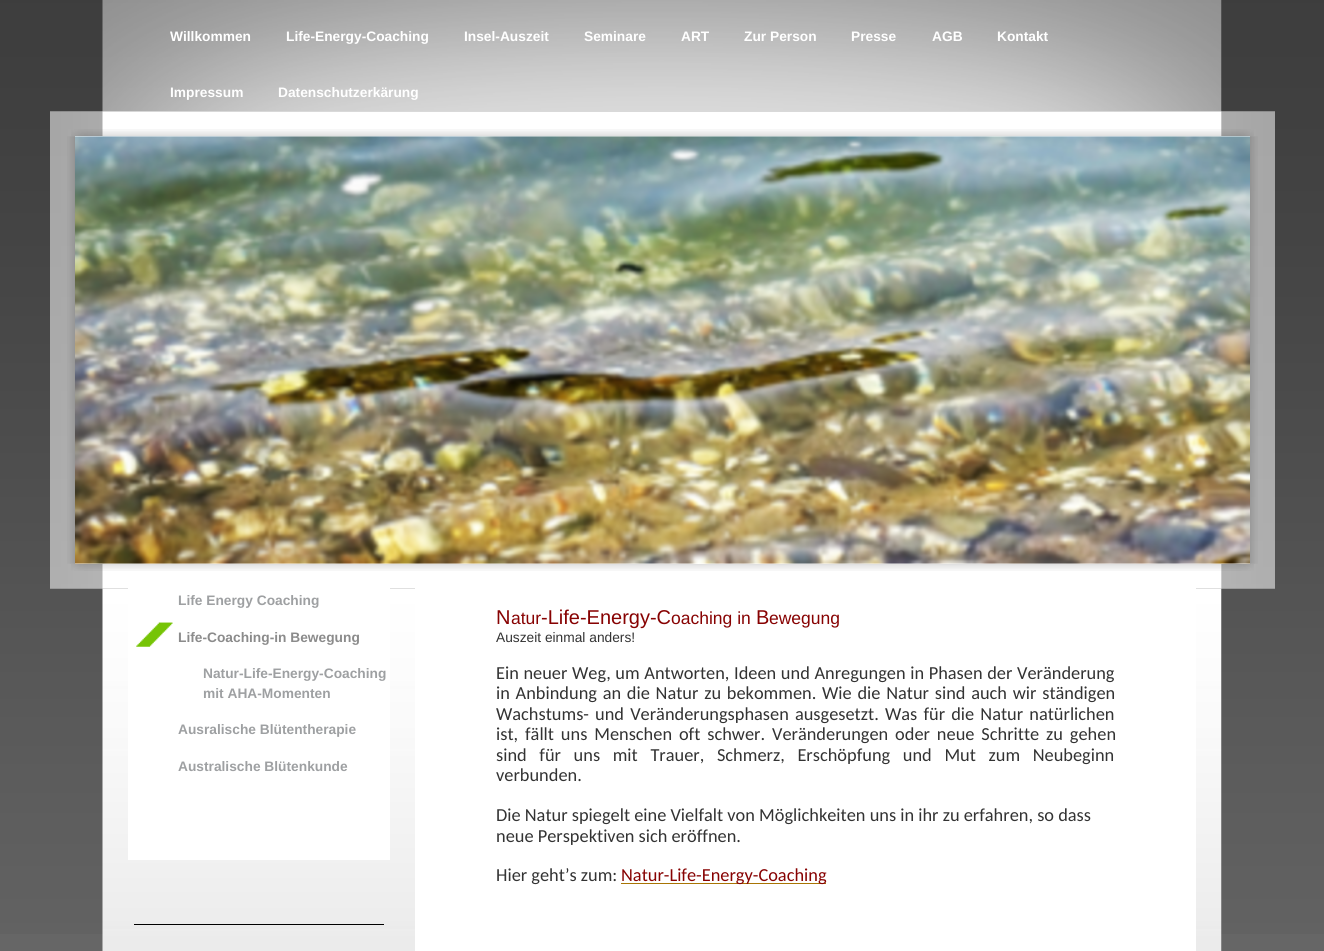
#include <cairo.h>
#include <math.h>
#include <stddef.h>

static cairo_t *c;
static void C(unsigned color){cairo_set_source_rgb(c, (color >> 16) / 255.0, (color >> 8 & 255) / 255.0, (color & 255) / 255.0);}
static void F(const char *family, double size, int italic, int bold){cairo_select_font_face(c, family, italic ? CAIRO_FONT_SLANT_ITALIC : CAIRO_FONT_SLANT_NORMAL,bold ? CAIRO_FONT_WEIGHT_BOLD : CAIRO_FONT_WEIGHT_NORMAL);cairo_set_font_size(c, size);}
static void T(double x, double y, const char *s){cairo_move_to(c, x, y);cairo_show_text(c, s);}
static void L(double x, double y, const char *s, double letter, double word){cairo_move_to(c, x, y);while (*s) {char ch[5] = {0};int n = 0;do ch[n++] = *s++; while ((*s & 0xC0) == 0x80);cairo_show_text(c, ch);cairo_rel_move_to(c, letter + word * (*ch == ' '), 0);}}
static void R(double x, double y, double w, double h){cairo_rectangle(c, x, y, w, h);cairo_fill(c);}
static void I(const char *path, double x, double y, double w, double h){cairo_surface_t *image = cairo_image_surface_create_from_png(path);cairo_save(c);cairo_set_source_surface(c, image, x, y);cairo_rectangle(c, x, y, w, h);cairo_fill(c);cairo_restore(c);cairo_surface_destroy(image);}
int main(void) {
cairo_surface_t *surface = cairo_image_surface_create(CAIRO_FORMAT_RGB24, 1324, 951);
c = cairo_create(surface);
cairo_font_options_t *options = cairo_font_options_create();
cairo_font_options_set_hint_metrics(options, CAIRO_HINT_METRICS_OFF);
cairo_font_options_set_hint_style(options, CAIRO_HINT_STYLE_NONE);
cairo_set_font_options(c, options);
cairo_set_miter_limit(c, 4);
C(0x666666);
cairo_paint(c);
I("1.png",0,0,1324,934);
I("2.png",102,0,1120,112);
F("Liberation Sans",13.75,0,1);
C(0xffffff);
T(170,41,"Willkommen");
T(286,41,"Life-Energy-Coaching");
T(464,41,"Insel-Auszeit");
T(584,41,"Seminare");
T(681,41,"ART");
T(744,41,"Zur Person");
T(851,41,"Presse");
T(932,41,"AGB");
T(997,41,"Kontakt");
T(170,97,"Impressum");
T(278,97,"Datenschutzerkärung");
I("3.png",50,111,1225,478);
I("4.png",71,129,1183,7);
I("5.png",67,136,1191,428);
R(75,136,1175,428);
I("6.png",75,136,1175,428);
I("7.png",71,564,1183,7);
I("8.png",102,588,1120,363);
R(128,588,262,272);
C(0x9ea0a2);
T(178,605,"Life Energy Coaching");
C(0x76c406);
R(136,622,37,25);
I("9.png",128,619,262,37);
C(0x8b8b8b);
T(178,642,"Life-Coaching-in Bewegung");
C(0x9ea0a2);
T(203,678,"Natur-Life-Energy-Coaching");
T(203,698,"mit AHA-Momenten");
T(178,734,"Ausralische Blütentherapie");
T(178,771,"Australische Blütenkunde");
C(0x000000);
R(134,924,250,1);
C(0xffffff);
R(415,588,781,363);
F("Liberation Sans",20,0,0);
C(0x870202);
T(496,624,"N");
F("Liberation Sans",17.5,0,0);
T(511,624,"atur");
F("Liberation Sans",20,0,0);
T(541,624,"-Life-Energy-C");
F("Liberation Sans",17.5,0,0);
T(671,624,"oaching in");
F("Liberation Sans",20,0,0);
T(756,624,"B");
F("Liberation Sans",17.5,0,0);
T(769,624,"ewegung");
F("Liberation Sans",13.75,0,0);
C(0x333333);
T(496,642,"Auszeit einmal anders!");
F("Carlito",18.35,0,0);
L(496,679,"Ein neuer Weg, um Antworten, Ideen und Anregungen in Phasen der Veränderung",0,.5);
L(496,699,"in Anbindung an die Natur zu bekommen. Wie die Natur sind auch wir ständigen",0,1.6);
L(496,720,"Wachstums- und Veränderungsphasen ausgesetzt. Was für die Natur natürlichen",0,2);
L(496,740,"ist, fällt uns Menschen oft schwer. Veränderungen oder neue Schritte zu gehen",0,2.75);
L(496,761,"sind für uns mit Trauer, Schmerz, Erschöpfung und Mut zum Neubeginn",0,8.5);
T(496,781,"verbunden.");
T(496,821,"Die Natur spiegelt eine Vielfalt von Möglichkeiten uns in ihr zu erfahren, so dass");
T(496,842,"neue Perspektiven sich eröffnen.");
T(496,881,"Hier geht’s zum:");
C(0xa87404);
R(621,883,205,1);
C(0x870202);
T(621,881,"Natur-Life-Energy-Coaching");
cairo_surface_write_to_png(surface, "o.png");
cairo_font_options_destroy(options);
cairo_destroy(c);
cairo_surface_destroy(surface);
return 0;
}
